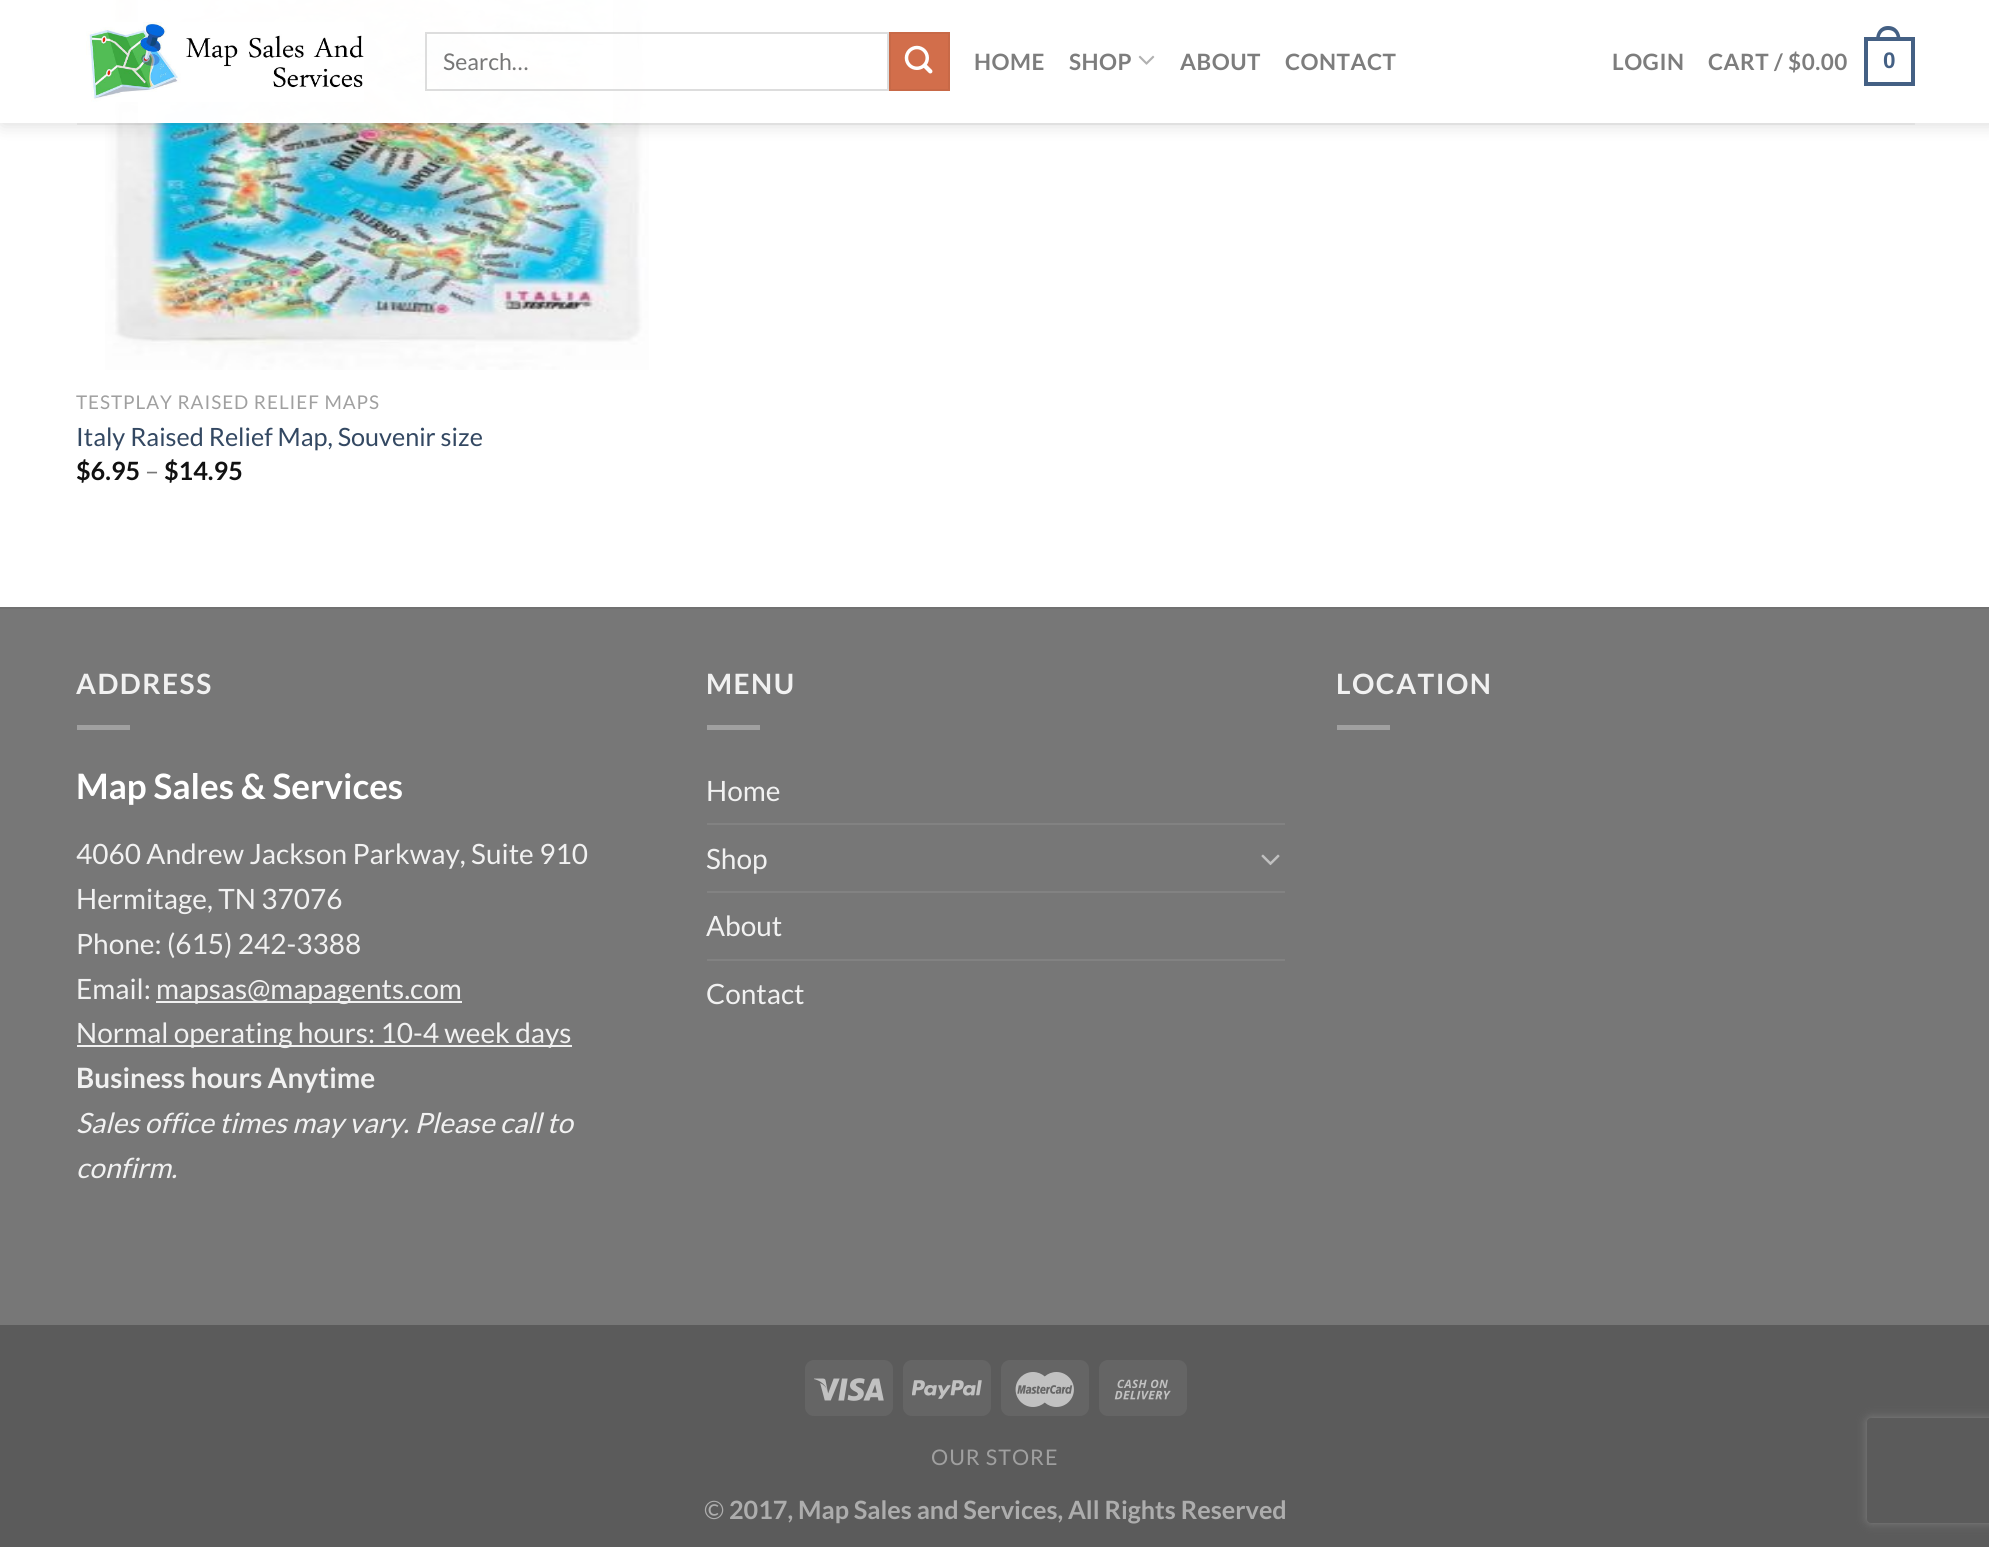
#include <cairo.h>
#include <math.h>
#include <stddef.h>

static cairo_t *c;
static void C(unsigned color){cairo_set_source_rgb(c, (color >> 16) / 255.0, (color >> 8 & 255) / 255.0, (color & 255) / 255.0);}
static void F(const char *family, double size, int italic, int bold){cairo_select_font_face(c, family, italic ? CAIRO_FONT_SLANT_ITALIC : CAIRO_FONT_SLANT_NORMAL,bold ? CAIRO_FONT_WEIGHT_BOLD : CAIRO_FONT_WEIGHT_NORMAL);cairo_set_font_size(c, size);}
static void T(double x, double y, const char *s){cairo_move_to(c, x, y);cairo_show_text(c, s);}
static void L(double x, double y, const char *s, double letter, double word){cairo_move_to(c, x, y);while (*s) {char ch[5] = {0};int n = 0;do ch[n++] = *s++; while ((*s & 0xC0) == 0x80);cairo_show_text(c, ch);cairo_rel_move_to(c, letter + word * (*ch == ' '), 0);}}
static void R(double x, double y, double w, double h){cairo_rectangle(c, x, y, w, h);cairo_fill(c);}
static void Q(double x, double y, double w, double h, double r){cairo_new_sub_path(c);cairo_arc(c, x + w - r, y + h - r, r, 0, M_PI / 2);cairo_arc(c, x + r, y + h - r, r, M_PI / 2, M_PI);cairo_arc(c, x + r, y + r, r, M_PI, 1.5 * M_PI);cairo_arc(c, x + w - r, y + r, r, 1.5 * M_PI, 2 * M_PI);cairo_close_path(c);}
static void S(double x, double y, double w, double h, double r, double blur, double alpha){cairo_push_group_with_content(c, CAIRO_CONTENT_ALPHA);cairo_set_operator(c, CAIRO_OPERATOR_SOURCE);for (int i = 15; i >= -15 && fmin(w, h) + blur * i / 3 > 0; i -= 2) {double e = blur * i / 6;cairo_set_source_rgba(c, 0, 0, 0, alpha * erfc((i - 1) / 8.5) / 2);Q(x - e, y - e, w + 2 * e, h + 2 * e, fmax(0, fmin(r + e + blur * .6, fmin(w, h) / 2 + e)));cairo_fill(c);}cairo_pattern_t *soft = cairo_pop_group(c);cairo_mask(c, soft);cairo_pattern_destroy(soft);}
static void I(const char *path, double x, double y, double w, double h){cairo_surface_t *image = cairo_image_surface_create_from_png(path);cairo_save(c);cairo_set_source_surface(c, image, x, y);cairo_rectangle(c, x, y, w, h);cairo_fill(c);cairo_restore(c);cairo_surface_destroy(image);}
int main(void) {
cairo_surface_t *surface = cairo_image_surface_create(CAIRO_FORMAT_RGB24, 1989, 1547);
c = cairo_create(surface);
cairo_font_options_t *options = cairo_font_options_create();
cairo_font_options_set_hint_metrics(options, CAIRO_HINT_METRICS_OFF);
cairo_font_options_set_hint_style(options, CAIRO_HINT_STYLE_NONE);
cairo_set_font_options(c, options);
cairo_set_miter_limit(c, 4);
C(0xffffff);
cairo_paint(c);
I("4.png",105,0,544,370);
cairo_save(c);
cairo_set_fill_rule(c,CAIRO_FILL_RULE_EVEN_ODD);
cairo_new_path(c);
cairo_move_to(c,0,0);
cairo_line_to(c,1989,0);
cairo_line_to(c,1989,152);
cairo_line_to(c,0,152);
cairo_close_path(c);
cairo_move_to(c,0,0);
cairo_line_to(c,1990,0);
cairo_line_to(c,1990,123);
cairo_line_to(c,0,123);
cairo_close_path(c);
cairo_clip(c);
C(0x000000);
S(2,2,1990,122,0,9,.15);
cairo_restore(c);
cairo_set_source_rgba(c,1,1,1,0.9);
R(0,0,1989,123);
R(138,0,475,123);
I("1.png",86,22,278,80);
cairo_rectangle(c,426,33,462,57);
C(0xdddddd);
cairo_stroke(c);
F("Lato",23,0,0);
C(0x777777);
T(443,70,"Search…");
C(0xd26e4b);
cairo_rectangle(c,890,33,59,57);
cairo_fill_preserve(c);
C(0xc86947);
cairo_stroke(c);
I("2.png",904,45,29,29);
F("Lato",22.5,0,1);
C(0x7d7d7d);
L(974,70,"HOME",.5,0);
L(1069,70,"SHOP",.5,0);
I("3.png",1138,55,17,10);
L(1180,70,"ABOUT",.5,0);
L(1285,70,"CONTACT",.5,0);
L(1612,70,"LOGIN",.5,0);
L(1708,70,"CART / $0.00",.5,0);
cairo_rectangle(c,1866,39,47,45);
C(0x446084);
cairo_set_line_width(c,4);
cairo_stroke(c);
cairo_set_fill_rule(c,CAIRO_FILL_RULE_EVEN_ODD);
cairo_new_path(c);
cairo_move_to(c,1888,26);
cairo_curve_to(c,1896.5,26,1900.5,32.5,1900.5,40);
cairo_line_to(c,1876,40);
cairo_curve_to(c,1876,32.5,1880,26,1888,26);
cairo_close_path(c);
cairo_move_to(c,1888,30);
cairo_curve_to(c,1894.5,30,1897,34.5,1897,40);
cairo_line_to(c,1879.5,40);
cairo_curve_to(c,1879.5,34.5,1882,30,1888,30);
cairo_close_path(c);
cairo_fill(c);
F("Liberation Sans",22.5,0,1);
L(1883,68,"0",.5,0);
cairo_set_source_rgba(c,0.467,0.467,0.467,0.1);
R(77,123,1838,2);
F("Lato",18.9,0,0);
C(0xa0a0a0);
L(76,409,"TESTPLAY RAISED RELIEF MAPS",.95,0);
F("Lato",25.2,0,0);
C(0x334862);
T(76,446,"Italy Raised Relief Map, Souvenir size");
F("Lato",25.2,0,1);
C(0x111111);
T(76,480,"$6.95");
F("Lato",25.2,0,0);
C(0x777777);
T(145,480,"–");
F("Lato",25.2,0,1);
C(0x111111);
T(164,480,"$14.95");
C(0x777777);
R(0,609,1989,716);
C(0x717171);
R(0,607,1989,2);
F("Lato",28,0,1);
C(0xf1f1f1);
L(76,694,"ADDRESS",1.5,0);
C(0xa0a0a0);
R(77,725,53,5);
F("Lato",35,0,1);
C(0xffffff);
T(76,799,"Map Sales & Services");
F("Lato",28,0,0);
C(0xf1f1f1);
T(76,864,"4060 Andrew Jackson Parkway, Suite 910");
T(76,909,"Hermitage, TN 37076");
T(76,954,"Phone: (615) 242-3388");
T(76,999,"Email:");
R(156,1001,306,2);
T(156,999,"mapsas@mapagents.com");
R(77,1045,495,2);
T(76,1043,"Normal operating hours: 10-4 week days");
F("Lato",28,0,1);
T(76,1088,"Business hours Anytime");
F("Lato",28,1,0);
T(76,1133,"Sales office times may vary. Please call to");
T(76,1178,"confirm.");
F("Lato",28,0,1);
L(706,694,"MENU",1.5,0);
C(0xa0a0a0);
R(707,725,53,5);
F("Lato",28,0,0);
C(0xf1f1f1);
T(706,801,"Home");
C(0x828282);
R(707,823,578,2);
C(0xf1f1f1);
T(706,869,"Shop");
I("5.png",1261,854,19,12);
C(0x828282);
R(707,891,578,2);
C(0xf1f1f1);
T(706,936,"About");
C(0x828282);
R(707,959,578,2);
C(0xf1f1f1);
T(706,1004,"Contact");
F("Lato",28,0,1);
L(1336,694,"LOCATION",1.5,0);
C(0xa0a0a0);
R(1337,725,53,5);
C(0x5b5b5b);
R(0,1325,1989,222);
C(0x656565);
Q(805,1360,88,56,9);
cairo_fill(c);
I("6.png",814,1378,70,23);
Q(903,1360,88,56,9);
cairo_fill(c);
I("7.png",912,1380,70,19);
Q(1001,1360,88,56,9);
cairo_fill(c);
I("8.png",1015,1372,59,35);
Q(1099,1360,88,56,9);
cairo_fill(c);
I("9.png",1114,1379,57,21);
F("Lato",21.5,0,0);
C(0xa0a0a0);
L(931,1465,"OUR STORE",1,0);
F("Lato",25.2,0,0);
C(0xadadad);
T(704,1519,"©");
F("Lato",25.2,0,1);
T(729,1519,"2017, Map Sales and Services, All Rights Reserved");
cairo_save(c);
cairo_new_path(c);
cairo_move_to(c,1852,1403);
cairo_line_to(c,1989,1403);
cairo_line_to(c,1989,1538);
cairo_line_to(c,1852,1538);
cairo_close_path(c);
cairo_move_to(c,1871,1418);
cairo_line_to(c,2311,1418);
cairo_curve_to(c,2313,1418,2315,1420,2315,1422);
cairo_line_to(c,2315,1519);
cairo_curve_to(c,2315,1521,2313,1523,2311,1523);
cairo_line_to(c,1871,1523);
cairo_curve_to(c,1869,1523,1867,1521,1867,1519);
cairo_line_to(c,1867,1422);
cairo_curve_to(c,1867,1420,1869,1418,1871,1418);
cairo_close_path(c);
cairo_clip(c);
C(0x808080);
S(1867,1418,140,105,4,4.5,1);
cairo_restore(c);
cairo_surface_write_to_png(surface, "o.png");
cairo_font_options_destroy(options);
cairo_destroy(c);
cairo_surface_destroy(surface);
return 0;
}
